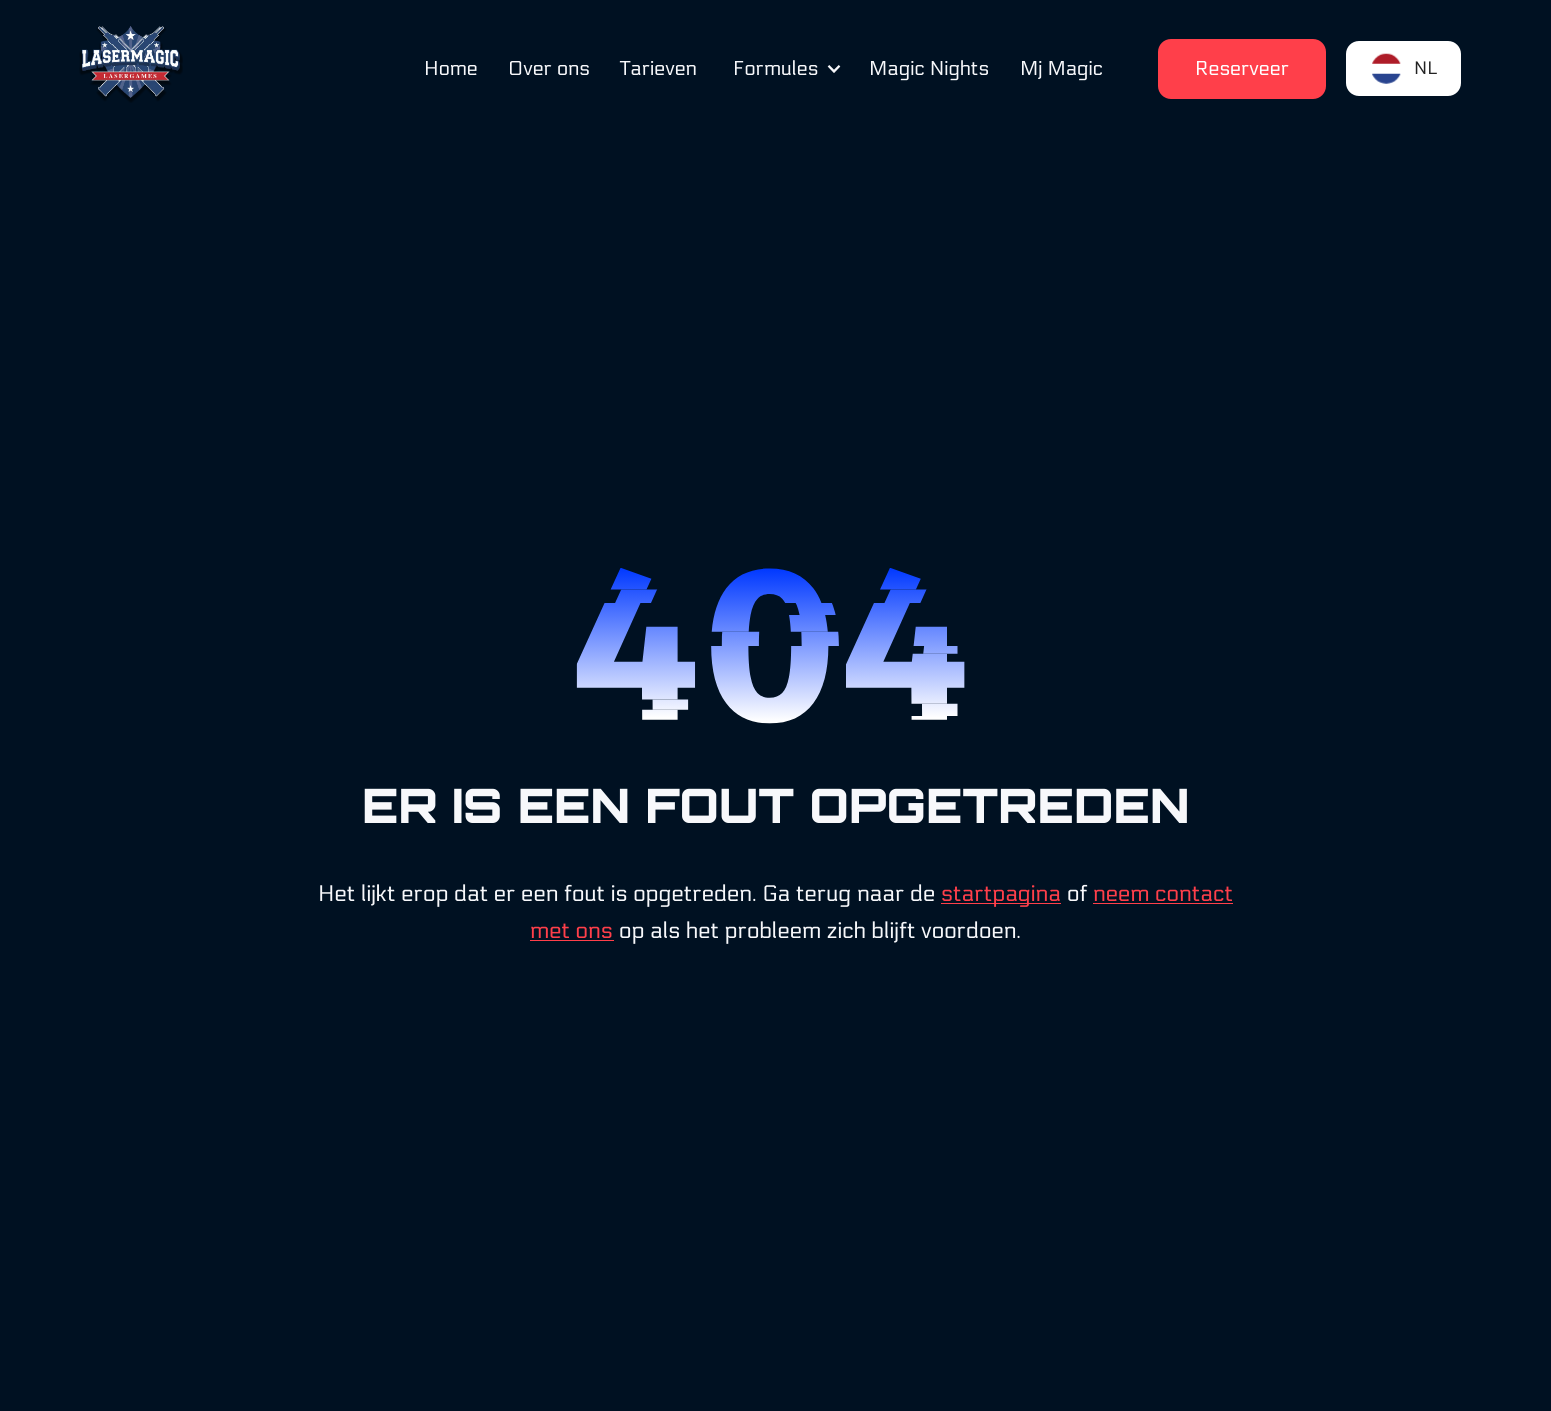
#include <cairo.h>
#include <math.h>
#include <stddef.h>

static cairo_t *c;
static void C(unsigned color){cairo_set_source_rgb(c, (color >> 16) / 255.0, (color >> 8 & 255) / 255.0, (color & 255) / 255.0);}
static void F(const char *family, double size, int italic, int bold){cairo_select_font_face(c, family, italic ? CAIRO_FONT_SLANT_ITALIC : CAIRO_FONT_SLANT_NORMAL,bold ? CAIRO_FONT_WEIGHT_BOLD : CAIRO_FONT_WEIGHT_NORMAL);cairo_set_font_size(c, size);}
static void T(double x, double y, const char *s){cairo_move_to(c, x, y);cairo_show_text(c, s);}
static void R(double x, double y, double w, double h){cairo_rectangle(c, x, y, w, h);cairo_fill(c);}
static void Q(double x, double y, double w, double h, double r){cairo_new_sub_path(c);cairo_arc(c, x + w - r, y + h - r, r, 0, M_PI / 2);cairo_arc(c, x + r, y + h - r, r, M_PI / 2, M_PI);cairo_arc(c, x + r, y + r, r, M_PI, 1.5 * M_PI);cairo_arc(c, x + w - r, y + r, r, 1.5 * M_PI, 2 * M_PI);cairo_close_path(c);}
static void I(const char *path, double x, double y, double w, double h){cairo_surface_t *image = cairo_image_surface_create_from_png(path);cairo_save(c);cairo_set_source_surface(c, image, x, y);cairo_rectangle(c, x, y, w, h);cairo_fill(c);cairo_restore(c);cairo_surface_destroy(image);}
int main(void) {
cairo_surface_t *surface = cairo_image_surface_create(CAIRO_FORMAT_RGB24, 1551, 1411);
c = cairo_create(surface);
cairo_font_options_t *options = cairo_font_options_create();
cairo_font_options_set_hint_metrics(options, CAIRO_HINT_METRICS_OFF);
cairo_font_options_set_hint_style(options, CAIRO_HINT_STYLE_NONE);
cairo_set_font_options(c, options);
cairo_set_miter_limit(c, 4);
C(0x001122);
cairo_paint(c);
I("1.png",79,26,104,77);
F("Electrolize",20,0,0);
C(0xf7f8fb);
T(424,75,"Home");
T(508,75,"Over ons");
T(620,75,"Tarieven");
T(733,75,"Formules");
I("2.png",827,65,14,8);
T(869,75,"Magic Nights");
T(1020,75,"Mj Magic");
C(0xff3f4a);
Q(1158,39,168,60,13);
cairo_fill(c);
C(0xffffff);
T(1195,75,"Reserveer");
Q(1346,41,115,55,13);
cairo_fill(c);
I("3.png",1372,53,29,31);
F("Electrolize",18,0,0);
C(0x222222);
T(1414,74,"NL");
I("4.png",576,568,389,156);
F("Orbitron Black",47.5,0,0);
C(0xf7f8fb);
T(362,823,"ER IS EEN FOUT OPGETREDEN");
F("Electrolize",22.5,0,0);
T(318,901,"Het lijkt erop dat er een fout is opgetreden. Ga terug naar de");
C(0xff3f4a);
R(941,903,120,1);
T(941,901,"startpagina");
C(0xf7f8fb);
T(1067,901,"of");
C(0xff3f4a);
T(1093,901,"neem contact");
R(1093,903,140,1);
T(530,938,"met ons");
R(530,940,84,1);
C(0xf7f8fb);
T(619,938,"op als het probleem zich blijft voordoen.");
cairo_surface_write_to_png(surface, "o.png");
cairo_font_options_destroy(options);
cairo_destroy(c);
cairo_surface_destroy(surface);
return 0;
}
